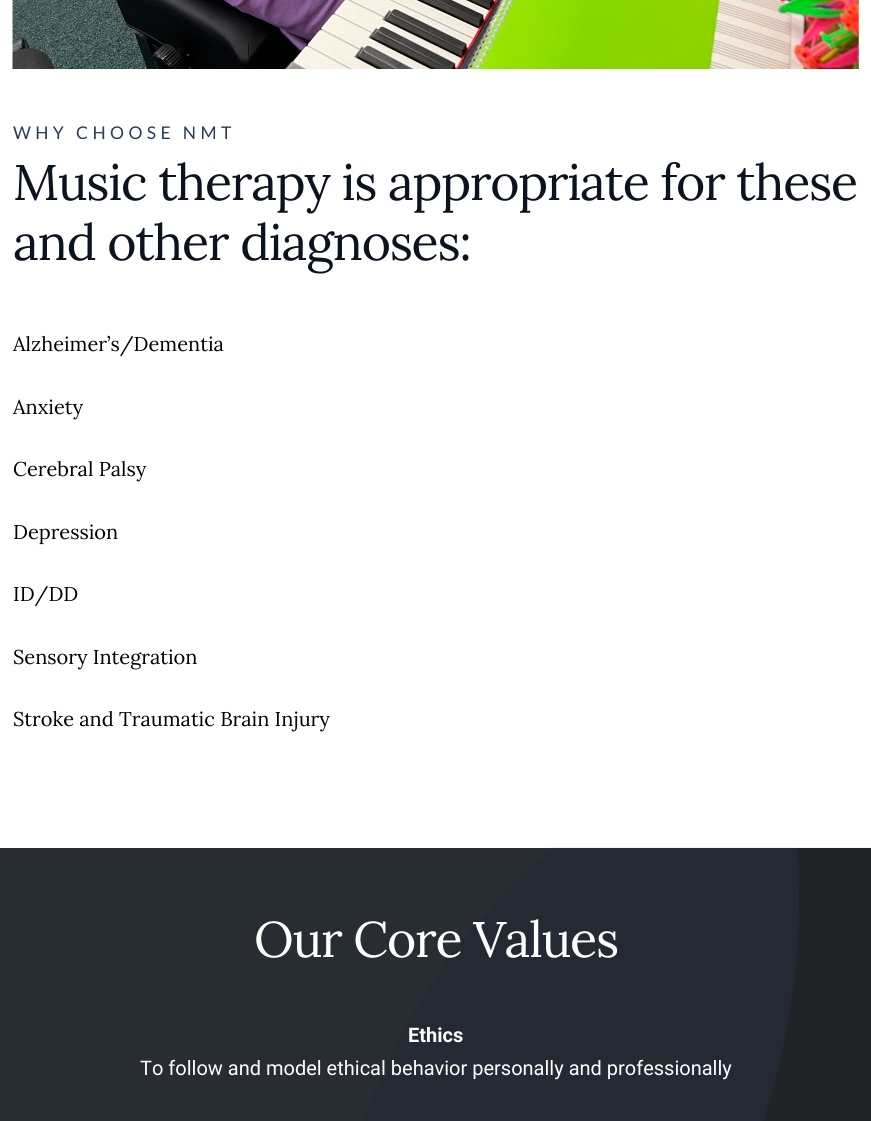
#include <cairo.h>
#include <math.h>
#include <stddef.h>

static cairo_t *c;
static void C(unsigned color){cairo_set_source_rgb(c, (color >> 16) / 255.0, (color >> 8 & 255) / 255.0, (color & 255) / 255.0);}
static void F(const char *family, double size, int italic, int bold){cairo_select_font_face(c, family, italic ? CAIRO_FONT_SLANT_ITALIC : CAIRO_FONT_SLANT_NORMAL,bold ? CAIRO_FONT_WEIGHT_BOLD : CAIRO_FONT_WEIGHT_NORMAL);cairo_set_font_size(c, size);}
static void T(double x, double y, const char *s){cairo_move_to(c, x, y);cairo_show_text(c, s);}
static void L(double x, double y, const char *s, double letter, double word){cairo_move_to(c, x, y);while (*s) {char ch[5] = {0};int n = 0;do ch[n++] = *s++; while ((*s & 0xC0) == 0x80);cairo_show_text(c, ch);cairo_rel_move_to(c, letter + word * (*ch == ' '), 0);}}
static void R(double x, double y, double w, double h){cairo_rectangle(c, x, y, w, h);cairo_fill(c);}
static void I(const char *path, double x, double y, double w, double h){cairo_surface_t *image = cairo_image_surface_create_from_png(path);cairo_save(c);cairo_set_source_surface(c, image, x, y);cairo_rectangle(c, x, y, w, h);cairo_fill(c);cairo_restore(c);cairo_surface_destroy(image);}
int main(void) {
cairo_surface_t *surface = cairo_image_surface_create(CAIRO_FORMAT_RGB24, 871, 1121);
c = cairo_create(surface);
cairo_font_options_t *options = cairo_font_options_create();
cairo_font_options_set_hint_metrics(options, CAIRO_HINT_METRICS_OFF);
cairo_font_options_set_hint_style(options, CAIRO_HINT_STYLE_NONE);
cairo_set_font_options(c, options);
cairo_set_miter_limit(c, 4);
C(0xffffff);
cairo_paint(c);
I("1.png",12,0,847,69);
F("Lato",17.5,0,0);
C(0x283d57);
L(13,139,"WHY CHOOSE NMT",4.4,0);
F("Lora",50,0,0);
C(0x0b131e);
L(13,200,"Music therapy is appropriate for these",-1.25,0);
L(13,260,"and other diagnoses:",-1.25,0);
F("Lora",20,0,0);
C(0x000000);
T(13,351,"Alzheimer’s/Dementia");
T(13,414,"Anxiety");
T(13,476,"Cerebral Palsy");
T(13,539,"Depression");
T(13,601,"ID/DD");
T(13,664,"Sensory Integration");
T(13,726,"Stroke and Traumatic Brain Injury");
C(0x242424);
R(0,848,871,273);
I("2.png",0,847,871,274);
F("Lora",50,0,0);
C(0xffffff);
L(254,957,"Our Core Values",-1.25,0);
F("Roboto",20,0,1);
T(408,1042,"Ethics");
F("Roboto",20,0,0);
T(140,1075,"To follow and model ethical behavior personally and professionally");
cairo_surface_write_to_png(surface, "o.png");
cairo_font_options_destroy(options);
cairo_destroy(c);
cairo_surface_destroy(surface);
return 0;
}
